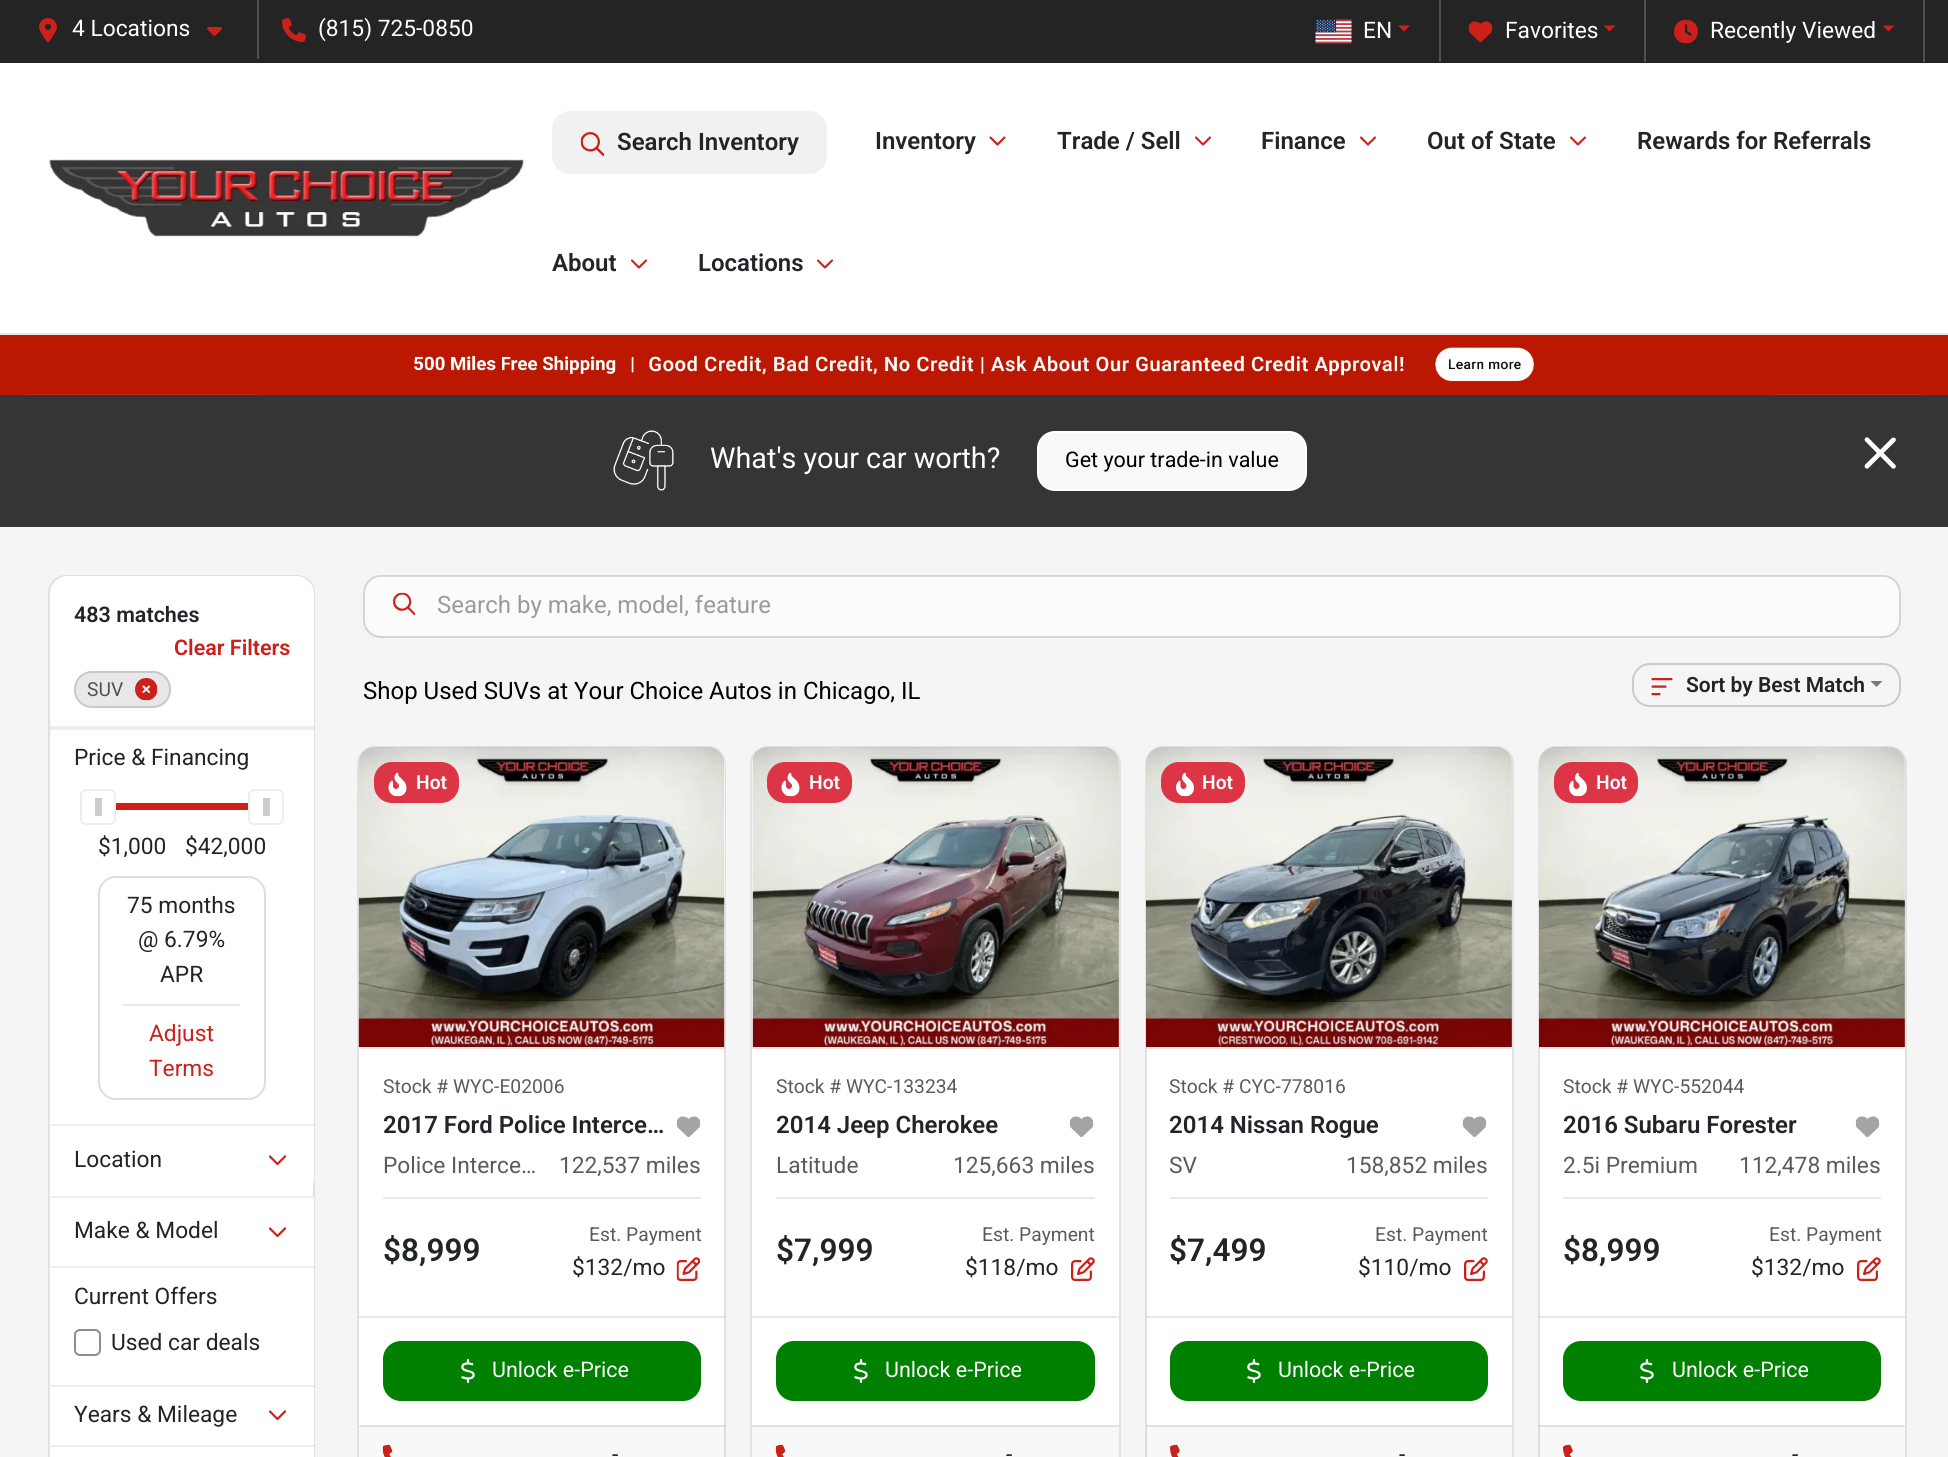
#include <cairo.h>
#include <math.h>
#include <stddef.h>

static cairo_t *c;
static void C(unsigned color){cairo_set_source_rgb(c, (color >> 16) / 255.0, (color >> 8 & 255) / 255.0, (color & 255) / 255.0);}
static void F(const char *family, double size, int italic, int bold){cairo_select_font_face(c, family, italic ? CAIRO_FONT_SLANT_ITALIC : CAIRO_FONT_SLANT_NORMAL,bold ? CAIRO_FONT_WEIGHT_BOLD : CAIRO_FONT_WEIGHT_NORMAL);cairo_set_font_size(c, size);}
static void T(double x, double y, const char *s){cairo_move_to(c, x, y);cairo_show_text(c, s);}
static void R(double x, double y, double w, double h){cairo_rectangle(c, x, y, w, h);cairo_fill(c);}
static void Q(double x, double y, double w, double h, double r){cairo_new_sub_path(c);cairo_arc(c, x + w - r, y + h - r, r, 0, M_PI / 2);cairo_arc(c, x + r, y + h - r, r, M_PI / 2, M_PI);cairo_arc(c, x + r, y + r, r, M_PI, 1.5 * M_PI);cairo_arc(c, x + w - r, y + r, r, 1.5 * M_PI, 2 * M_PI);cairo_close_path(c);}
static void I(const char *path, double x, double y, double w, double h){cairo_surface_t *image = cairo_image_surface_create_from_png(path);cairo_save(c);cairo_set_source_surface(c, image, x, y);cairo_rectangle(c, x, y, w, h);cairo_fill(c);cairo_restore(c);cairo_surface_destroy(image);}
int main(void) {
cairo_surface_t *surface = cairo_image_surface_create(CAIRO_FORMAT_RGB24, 1948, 1457);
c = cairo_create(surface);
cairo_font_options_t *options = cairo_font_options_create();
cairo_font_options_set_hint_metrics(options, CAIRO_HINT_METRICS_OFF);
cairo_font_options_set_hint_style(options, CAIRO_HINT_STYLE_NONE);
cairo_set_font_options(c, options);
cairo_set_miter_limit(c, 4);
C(0xf5f5f5);
cairo_paint(c);
C(0x242424);
R(0,0,1948,62);
C(0x232324);
R(0,62,1948,1);
C(0x505050);
R(257,0,2,59);
I("1.png",39,18,18,24);
F("Roboto",22.75,0,0);
C(0xffffff);
T(72,36,"4 Locations");
I("2.png",207,27,15,9);
I("3.png",282,18,24,24);
T(318,36,"(815) 725-0850");
C(0x505050);
R(1439,0,2,62);
I("4.png",1315,19,37,25);
C(0xffffff);
T(1363,38,"EN");
C(0xcb211a);
cairo_new_path(c);
cairo_move_to(c,1398,25.5);
cairo_line_to(c,1410,25.5);
cairo_line_to(c,1404,31.5);
cairo_close_path(c);
cairo_fill(c);
C(0x505050);
R(1644,0,2,62);
I("5.png",1468,21,25,21);
C(0xffffff);
T(1505,38,"Favorites");
C(0xcb211a);
cairo_new_path(c);
cairo_move_to(c,1603.5,25.5);
cairo_line_to(c,1615.5,25.5);
cairo_line_to(c,1609.5,31.5);
cairo_close_path(c);
cairo_fill(c);
C(0x505050);
R(1923,0,2,62);
I("6.png",1674,19,24,25);
C(0xffffff);
T(1710,38,"Recently Viewed");
C(0xcb211a);
cairo_new_path(c);
cairo_move_to(c,1882.5,25.5);
cairo_line_to(c,1894.5,25.5);
cairo_line_to(c,1888.5,31.5);
cairo_close_path(c);
cairo_fill(c);
C(0xffffff);
R(0,63,1948,270);
C(0xe8e8e9);
R(0,333,1948,2);
I("7.png",49,159,475,78);
C(0xf1f1f2);
Q(552,111,275,63,18);
cairo_fill(c);
I("8.png",580,132,25,24);
F("Roboto SemiBold",24,0,0);
C(0x212529);
T(617,150,"Search Inventory");
T(875,149,"Inventory");
I("9.png",989,136,17,10);
T(1057,149,"Trade / Sell");
I("10.png",1195,136,16,10);
T(1261,149,"Finance");
I("10.png",1360,136,16,10);
T(1427,149,"Out of State");
I("10.png",1570,136,16,10);
T(1637,149,"Rewards for Referrals");
T(552,271,"About");
I("10.png",631,259,16,10);
T(698,271,"Locations");
I("10.png",817,259,16,10);
C(0xbc1700);
R(0,335,1948,60);
I("11.png",24,335,1901,60);
C(0x353535);
R(0,395,1948,132);
I("12.png",613,430,61,61);
F("Roboto",28.75,0,0);
C(0xffffff);
T(710,468,"What's your car worth?");
C(0xf8f9fa);
Q(1038,432,268,58,17);
cairo_fill_preserve(c);
C(0xffffff);
cairo_stroke(c);
F("Roboto",21.5,0,0);
C(0x000000);
T(1065,467,"Get your trade-in value");
I("13.png",1864,437,32,32);
C(0xffffff);
Q(50,576,264,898,17);
cairo_fill(c);
Q(49,576,265,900,17);
C(0xe1e1e1);
cairo_stroke(c);
cairo_save(c);
Q(50,576,264,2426,17);
cairo_clip(c);
C(0xffffff);
cairo_new_path(c);
cairo_move_to(c,68,576);
cairo_line_to(c,296,576);
cairo_curve_to(c,306,576,314,584,314,594);
cairo_line_to(c,314,728);
cairo_line_to(c,50,728);
cairo_line_to(c,50,594);
cairo_curve_to(c,50,584,58,576,68,576);
cairo_close_path(c);
cairo_fill(c);
cairo_restore(c);
C(0xeeeeee);
R(50,726,264,4);
F("Roboto SemiBold",21.5,0,0);
C(0x212529);
T(74,622,"483 matches");
C(0xcb211a);
T(174,655,"Clear Filters");
C(0xe8e8e9);
Q(74,671,97,37,18);
cairo_fill(c);
Q(75,672,95,35,17);
cairo_set_source_rgba(c,0.094,0.11,0.129,0.15);
cairo_stroke(c);
F("Roboto",19.25,0,0);
C(0x4e5155);
T(87,696,"SUV");
I("14.png",135,678,23,23);
C(0xffffff);
R(313,730,1,394);
F("Roboto",22.75,0,0);
C(0x212529);
T(74,765,"Price & Financing");
C(0xcb211a);
R(116,803,132,7);
Q(81,790,34,34,5);
C(0xeeeeee);
cairo_stroke(c);
C(0xcccccc);
R(95,798,7,18);
Q(249,790,34,34,5);
C(0xeeeeee);
cairo_stroke(c);
C(0xcccccc);
R(263,798,7,18);
C(0x212529);
T(98,854,"$1,000");
T(185,854,"$42,000");
Q(99,877,166,222,17);
C(0xdcddde);
cairo_stroke(c);
C(0x212529);
T(127,913,"75 months");
T(138,947,"@ 6.79%");
T(160,982,"APR");
C(0xe8e8e9);
R(123,1004,117,2);
C(0xcb211a);
T(149,1041,"Adjust");
T(149,1076,"Terms");
C(0xffffff);
cairo_new_path(c);
cairo_move_to(c,50,1124);
cairo_line_to(c,314,1124);
cairo_line_to(c,314,1178);
cairo_curve_to(c,314,1188,306,1196,296,1196);
cairo_line_to(c,68,1196);
cairo_curve_to(c,58,1196,50,1188,50,1178);
cairo_close_path(c);
cairo_fill(c);
C(0xeeeeee);
R(50,1124,264,2);
C(0x212529);
T(74,1167,"Location");
I("15.png",268,1155,18,11);
C(0xffffff);
R(313,1198,1,68);
C(0xeeeeee);
R(50,1196,264,2);
C(0x212529);
T(74,1238,"Make & Model");
I("15.png",268,1227,18,11);
C(0xffffff);
R(313,1268,1,117);
C(0xeeeeee);
R(50,1266,264,2);
C(0x212529);
T(74,1304,"Current Offers");
Q(75,1330,25,25,5);
C(0x8c8e90);
cairo_stroke(c);
C(0x212529);
T(111,1350,"Used car deals");
C(0xffffff);
R(313,1387,1,58);
C(0xeeeeee);
R(50,1385,264,2);
C(0x212529);
T(74,1422,"Years & Mileage");
I("15.png",268,1410,18,11);
C(0xffffff);
R(313,1447,1,10);
C(0xeeeeee);
R(50,1445,264,2);
C(0xfbfbfb);
Q(365,576,1534,60,17);
cairo_fill(c);
Q(364,576,1536,61,17);
cairo_set_source_rgba(c,0.094,0.11,0.129,0.15);
cairo_stroke(c);
I("16.png",393,592,23,23);
F("Roboto",24,0,0);
C(0x999b9d);
T(437,613,"Search by make, model, feature");
C(0x000000);
T(363,699,"Shop Used SUVs at Your Choice Autos in Chicago, IL");
Q(1633,664,267,42,17);
C(0xc9cacb);
cairo_stroke(c);
I("17.png",1651,678,22,18);
F("Roboto SemiBold",21,0,0);
C(0x212529);
T(1686,692,"Sort by Best Match");
C(0x777777);
cairo_new_path(c);
cairo_move_to(c,1870.5,681);
cairo_line_to(c,1882.5,681);
cairo_line_to(c,1876.5,687);
cairo_close_path(c);
cairo_fill(c);
C(0xffffff);
Q(359,747,366,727,17);
cairo_fill(c);
Q(358,747,367,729,17);
C(0xe1e1e1);
cairo_stroke(c);
cairo_set_source_rgba(c,0.094,0.11,0.129,0.1);
R(359,1047,366,2);
C(0xf4f5f7);
cairo_new_path(c);
cairo_move_to(c,376,747);
cairo_line_to(c,708,747);
cairo_curve_to(c,717.5,747,725,754.5,725,764);
cairo_line_to(c,725,1047);
cairo_line_to(c,359,1047);
cairo_line_to(c,359,764);
cairo_curve_to(c,359,754.5,366.5,747,376,747);
cairo_close_path(c);
cairo_fill(c);
I("18.png",358,747,367,300);
C(0xdc3545);
Q(374,762,85,41,18);
cairo_fill(c);
I("19.png",388,772,19,25);
F("Roboto SemiBold",19.25,0,0);
C(0xffffff);
T(416,789,"Hot");
F("Roboto",19.25,0,0);
C(0x595c5f);
T(383,1093,"Stock # WYC-E02006");
F("Roboto SemiBold",24,0,0);
C(0x212529);
T(383,1133,"2017 Ford Police Interce…");
I("20.png",676,1116,25,21);
F("Roboto",22.75,0,0);
C(0x595c5f);
T(383,1173,"Police Interce…");
T(559,1173,"122,537 miles");
C(0xe8e8e9);
R(383,1197,318,2);
F("Roboto SemiBold",31.5,0,0);
C(0x212529);
T(383,1261,"$8,999");
F("Roboto",19.25,0,0);
C(0x595c5f);
T(589,1241,"Est. Payment");
F("Roboto",22.75,0,0);
C(0x212529);
T(572,1275,"$132/mo");
I("21.png",676,1257,25,24);
cairo_set_source_rgba(c,0.094,0.11,0.129,0.1);
R(359,1316,366,2);
C(0x008000);
Q(384,1342,316,58,17);
cairo_fill_preserve(c);
cairo_stroke(c);
I("22.png",461,1359,14,24);
F("Roboto",21.5,0,0);
C(0xffffff);
T(492,1377,"Unlock e-Price");
cairo_set_source_rgba(c,0.094,0.11,0.129,0.03);
R(359,1425,366,32);
cairo_set_source_rgba(c,0.094,0.11,0.129,0.1);
R(359,1425,366,2);
I("23.png",382,1444,11,13);
F("Roboto",22.75,0,0);
C(0x212529);
T(612,1462,"-");
C(0xffffff);
Q(752,747,367,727,17);
cairo_fill(c);
Q(751,747,369,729,17);
C(0xe1e1e1);
cairo_stroke(c);
C(0xe8e8e9);
R(752,1047,367,2);
C(0xf4f5f7);
cairo_new_path(c);
cairo_move_to(c,769,747);
cairo_line_to(c,1102,747);
cairo_curve_to(c,1111.5,747,1119,754.5,1119,764);
cairo_line_to(c,1119,1047);
cairo_line_to(c,752,1047);
cairo_line_to(c,752,764);
cairo_curve_to(c,752,754.5,759.5,747,769,747);
cairo_close_path(c);
cairo_fill(c);
I("24.png",752,747,367,300);
C(0xdc3545);
Q(767,762,85,41,18);
cairo_fill(c);
I("19.png",781,772,19,25);
F("Roboto SemiBold",19.25,0,0);
C(0xffffff);
T(809,789,"Hot");
F("Roboto",19.25,0,0);
C(0x595c5f);
T(776,1093,"Stock # WYC-133234");
F("Roboto SemiBold",24,0,0);
C(0x212529);
T(776,1133,"2014 Jeep Cherokee");
I("20.png",1069,1116,25,21);
F("Roboto",22.75,0,0);
C(0x595c5f);
T(776,1173,"Latitude");
T(953,1173,"125,663 miles");
C(0xe8e8e9);
R(776,1197,319,2);
F("Roboto SemiBold",31.5,0,0);
C(0x212529);
T(776,1261,"$7,999");
F("Roboto",19.25,0,0);
C(0x595c5f);
T(982,1241,"Est. Payment");
F("Roboto",22.75,0,0);
C(0x212529);
T(965,1275,"$118/mo");
I("25.png",1071,1257,24,24);
C(0xe8e8e9);
R(752,1316,367,2);
C(0x008000);
Q(777,1342,317,58,17);
cairo_fill_preserve(c);
cairo_stroke(c);
I("22.png",854,1359,14,24);
F("Roboto",21.5,0,0);
C(0xffffff);
T(885,1377,"Unlock e-Price");
C(0xf8f8f8);
R(752,1427,367,30);
C(0xe2e2e3);
R(752,1425,367,2);
I("26.png",775,1444,11,13);
F("Roboto",22.75,0,0);
C(0x212529);
T(1006,1462,"-");
C(0xffffff);
Q(1146,747,366,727,17);
cairo_fill(c);
Q(1146,747,367,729,17);
C(0xe1e1e1);
cairo_stroke(c);
cairo_set_source_rgba(c,0.094,0.11,0.129,0.1);
R(1146,1047,366,2);
I("27.png",1146,747,366,300);
C(0xdc3545);
Q(1161,762,84,41,18);
cairo_fill(c);
I("28.png",1176,772,18,25);
F("Roboto SemiBold",19.25,0,0);
C(0xffffff);
T(1202,789,"Hot");
F("Roboto",19.25,0,0);
C(0x595c5f);
T(1169,1093,"Stock # CYC-778016");
F("Roboto SemiBold",24,0,0);
C(0x212529);
T(1169,1133,"2014 Nissan Rogue");
I("20.png",1462,1116,25,21);
F("Roboto",22.75,0,0);
C(0x595c5f);
T(1169,1173,"SV");
T(1346,1173,"158,852 miles");
C(0xe8e8e9);
R(1170,1197,318,2);
F("Roboto SemiBold",31.5,0,0);
C(0x212529);
T(1169,1261,"$7,499");
F("Roboto",19.25,0,0);
C(0x595c5f);
T(1375,1241,"Est. Payment");
F("Roboto",22.75,0,0);
C(0x212529);
T(1358,1275,"$110/mo");
I("25.png",1464,1257,24,24);
cairo_set_source_rgba(c,0.094,0.11,0.129,0.1);
R(1146,1316,366,2);
C(0x008000);
Q(1171,1342,316,58,17);
cairo_fill_preserve(c);
cairo_stroke(c);
I("22.png",1247,1359,14,24);
F("Roboto",21.5,0,0);
C(0xffffff);
T(1278,1377,"Unlock e-Price");
cairo_set_source_rgba(c,0.094,0.11,0.129,0.03);
R(1146,1425,366,32);
cairo_set_source_rgba(c,0.094,0.11,0.129,0.1);
R(1146,1425,366,2);
I("29.png",1170,1444,10,13);
F("Roboto",22.75,0,0);
C(0x212529);
T(1399,1462,"-");
C(0xffffff);
Q(1539,747,366,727,17);
cairo_fill(c);
Q(1539,747,367,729,17);
C(0xe1e1e1);
cairo_stroke(c);
cairo_set_source_rgba(c,0.094,0.11,0.129,0.1);
R(1539,1047,366,2);
I("30.png",1539,747,366,300);
C(0xdc3545);
Q(1554,762,84,41,18);
cairo_fill(c);
I("28.png",1569,772,18,25);
F("Roboto SemiBold",19.25,0,0);
C(0xffffff);
T(1596,789,"Hot");
F("Roboto",19.25,0,0);
C(0x595c5f);
T(1563,1093,"Stock # WYC-552044");
F("Roboto SemiBold",24,0,0);
C(0x212529);
T(1563,1133,"2016 Subaru Forester");
I("20.png",1855,1116,25,21);
F("Roboto",22.75,0,0);
C(0x595c5f);
T(1563,1173,"2.5i Premium");
T(1739,1173,"112,478 miles");
C(0xe8e8e9);
R(1563,1197,318,2);
F("Roboto SemiBold",31.5,0,0);
C(0x212529);
T(1563,1261,"$8,999");
F("Roboto",19.25,0,0);
C(0x595c5f);
T(1769,1241,"Est. Payment");
F("Roboto",22.75,0,0);
C(0x212529);
T(1751,1275,"$132/mo");
I("25.png",1857,1257,24,24);
cairo_set_source_rgba(c,0.094,0.11,0.129,0.1);
R(1539,1316,366,2);
C(0x008000);
Q(1564,1342,316,58,17);
cairo_fill_preserve(c);
cairo_stroke(c);
I("22.png",1640,1359,14,24);
F("Roboto",21.5,0,0);
C(0xffffff);
T(1672,1377,"Unlock e-Price");
cairo_set_source_rgba(c,0.094,0.11,0.129,0.03);
R(1539,1425,366,32);
cairo_set_source_rgba(c,0.094,0.11,0.129,0.1);
R(1539,1425,366,2);
I("29.png",1563,1444,10,13);
F("Roboto",22.75,0,0);
C(0x212529);
T(1792,1462,"-");
cairo_surface_write_to_png(surface, "o.png");
cairo_font_options_destroy(options);
cairo_destroy(c);
cairo_surface_destroy(surface);
return 0;
}
